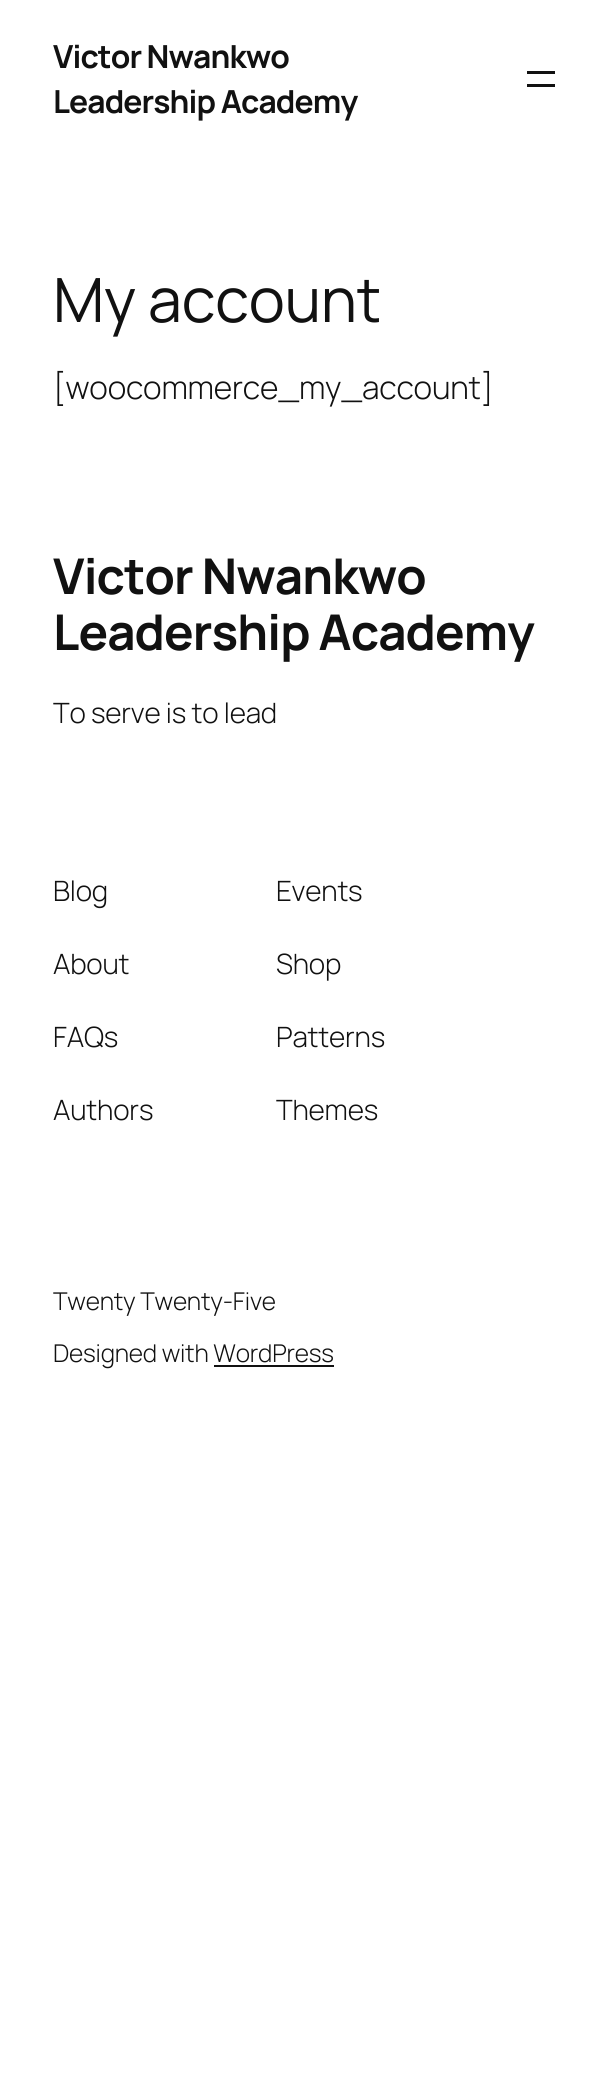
#include <cairo.h>
#include <math.h>
#include <stddef.h>

static cairo_t *c;
static void C(unsigned color){cairo_set_source_rgb(c, (color >> 16) / 255.0, (color >> 8 & 255) / 255.0, (color & 255) / 255.0);}
static void F(const char *family, double size, int italic, int bold){cairo_select_font_face(c, family, italic ? CAIRO_FONT_SLANT_ITALIC : CAIRO_FONT_SLANT_NORMAL,bold ? CAIRO_FONT_WEIGHT_BOLD : CAIRO_FONT_WEIGHT_NORMAL);cairo_set_font_size(c, size);}
static void L(double x, double y, const char *s, double letter, double word){cairo_move_to(c, x, y);while (*s) {char ch[5] = {0};int n = 0;do ch[n++] = *s++; while ((*s & 0xC0) == 0x80);cairo_show_text(c, ch);cairo_rel_move_to(c, letter + word * (*ch == ' '), 0);}}
static void R(double x, double y, double w, double h){cairo_rectangle(c, x, y, w, h);cairo_fill(c);}
int main(void) {
cairo_surface_t *surface = cairo_image_surface_create(CAIRO_FORMAT_RGB24, 613, 2087);
c = cairo_create(surface);
cairo_font_options_t *options = cairo_font_options_create();
cairo_font_options_set_hint_metrics(options, CAIRO_HINT_METRICS_OFF);
cairo_font_options_set_hint_style(options, CAIRO_HINT_STYLE_NONE);
cairo_set_font_options(c, options);
cairo_set_miter_limit(c, 4);
C(0xffffff);
cairo_paint(c);
F("Manrope",31.75,0,1);
C(0x111111);
L(53,68,"Victor Nwankwo",-.9,0);
L(53,113,"Leadership Academy",-.9,0);
R(527,71,28,3);
R(527,84,28,3);
F("Manrope",61,0,0);
L(53,322,"My account",-.2,0);
F("Manrope Light",31.75,0,0);
L(53,399,"[woocommerce_my_account]",-.2,0);
F("Manrope",49.25,0,1);
L(53,594,"Victor Nwankwo",-.9,0);
L(53,650,"Leadership Academy",-.9,0);
F("Manrope Light",28,0,0);
L(53,723,"To serve is to lead",-.2,0);
L(53,901,"Blog",-.2,0);
L(53,974,"About",-.2,0);
L(53,1047,"FAQs",-.2,0);
L(53,1120,"Authors",-.2,0);
L(276,901,"Events",-.2,0);
L(276,974,"Shop",-.2,0);
L(276,1047,"Patterns",-.2,0);
L(276,1120,"Themes",-.2,0);
F("Manrope Light",24.5,0,0);
L(53,1310,"Twenty Twenty-Five",-.2,0);
L(53,1362,"Designed with WordPress",-.2,0);
R(214,1365,120,2);
cairo_surface_write_to_png(surface, "o.png");
cairo_font_options_destroy(options);
cairo_destroy(c);
cairo_surface_destroy(surface);
return 0;
}
